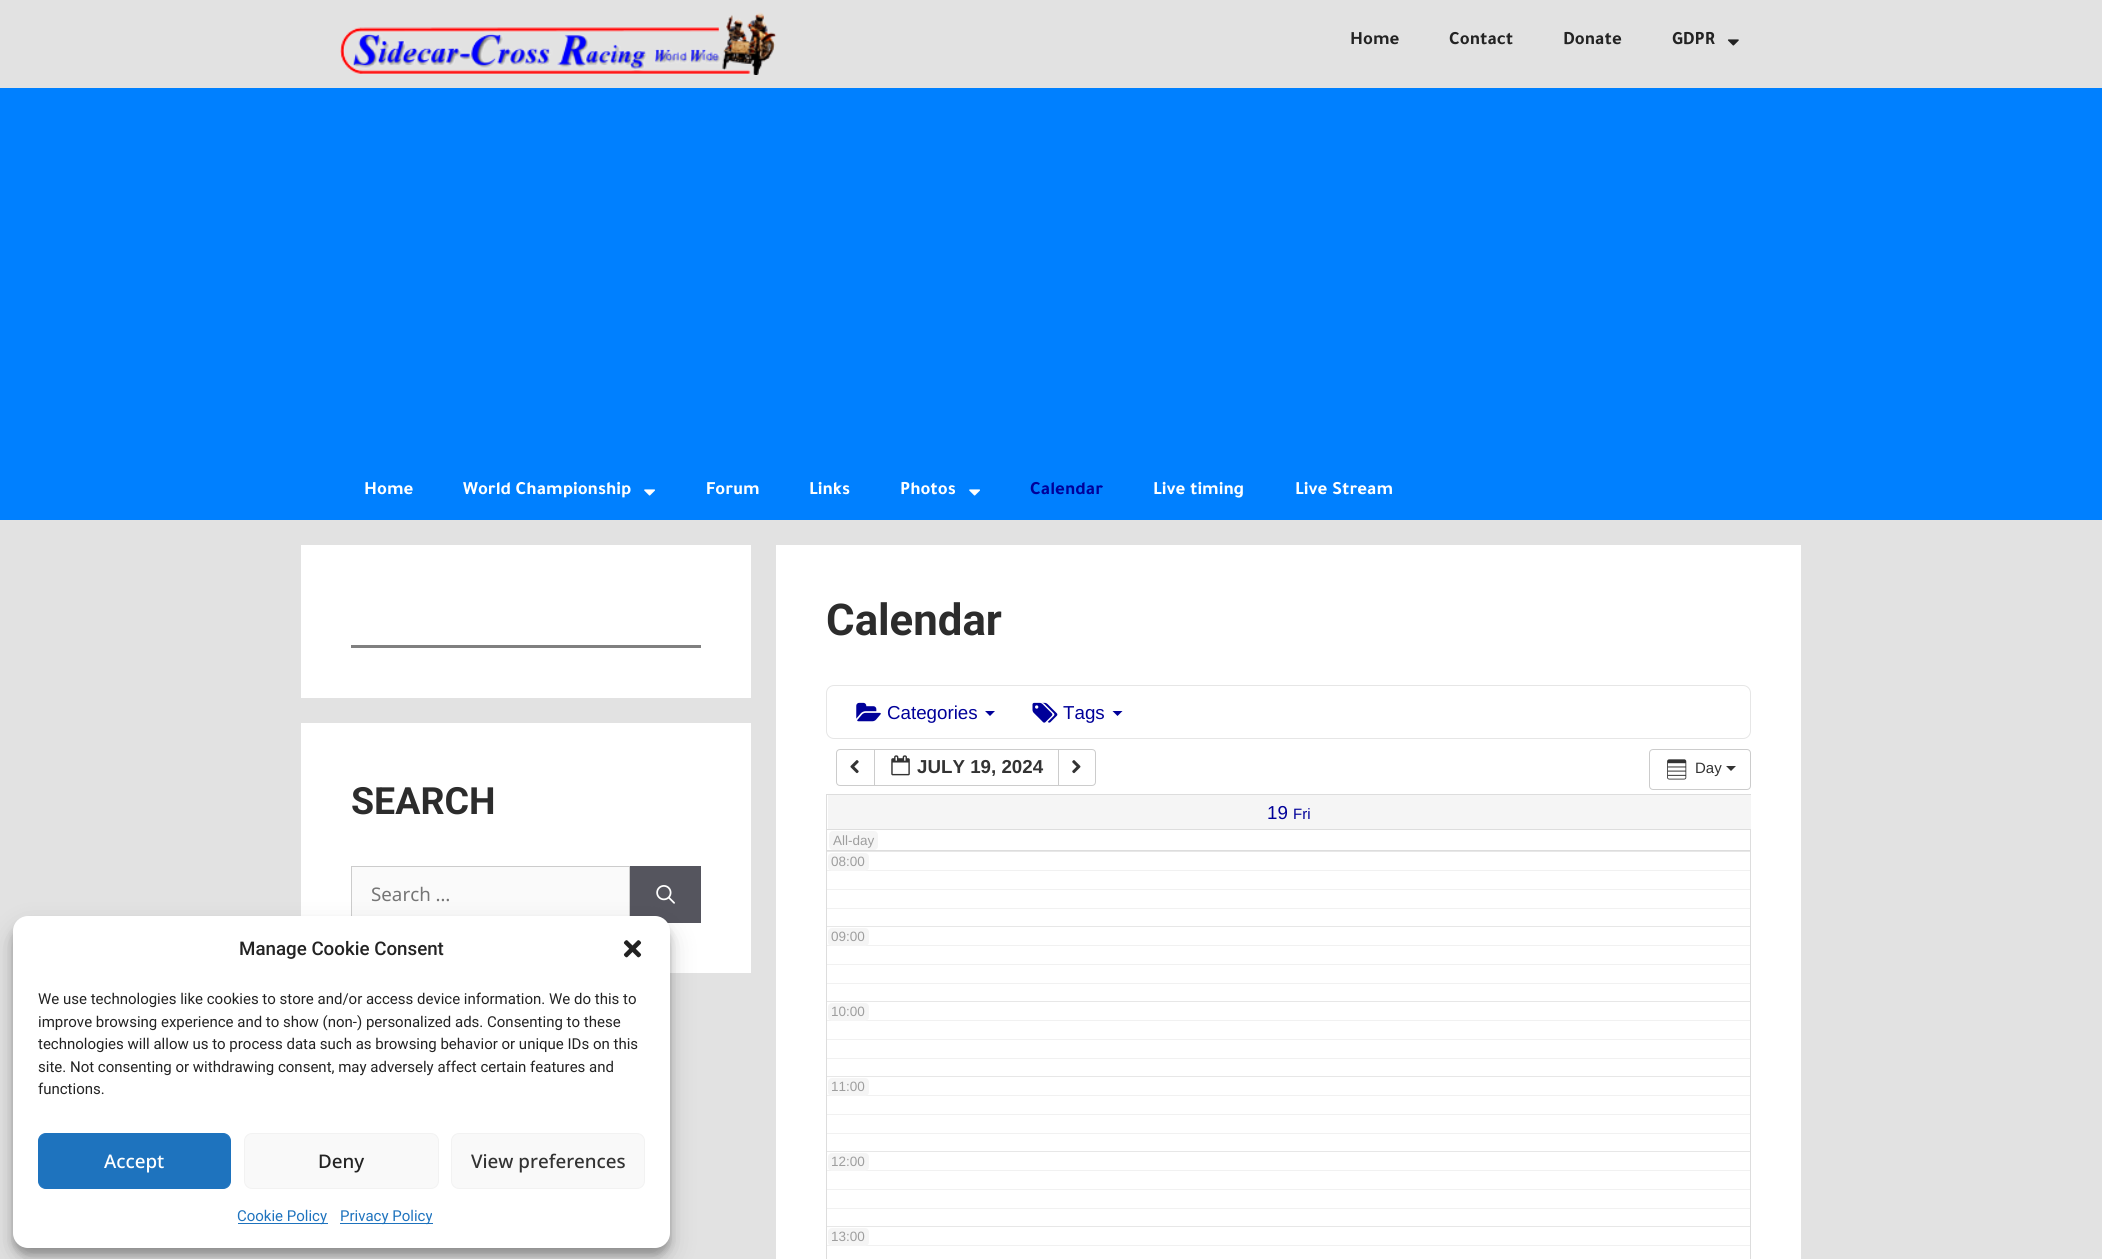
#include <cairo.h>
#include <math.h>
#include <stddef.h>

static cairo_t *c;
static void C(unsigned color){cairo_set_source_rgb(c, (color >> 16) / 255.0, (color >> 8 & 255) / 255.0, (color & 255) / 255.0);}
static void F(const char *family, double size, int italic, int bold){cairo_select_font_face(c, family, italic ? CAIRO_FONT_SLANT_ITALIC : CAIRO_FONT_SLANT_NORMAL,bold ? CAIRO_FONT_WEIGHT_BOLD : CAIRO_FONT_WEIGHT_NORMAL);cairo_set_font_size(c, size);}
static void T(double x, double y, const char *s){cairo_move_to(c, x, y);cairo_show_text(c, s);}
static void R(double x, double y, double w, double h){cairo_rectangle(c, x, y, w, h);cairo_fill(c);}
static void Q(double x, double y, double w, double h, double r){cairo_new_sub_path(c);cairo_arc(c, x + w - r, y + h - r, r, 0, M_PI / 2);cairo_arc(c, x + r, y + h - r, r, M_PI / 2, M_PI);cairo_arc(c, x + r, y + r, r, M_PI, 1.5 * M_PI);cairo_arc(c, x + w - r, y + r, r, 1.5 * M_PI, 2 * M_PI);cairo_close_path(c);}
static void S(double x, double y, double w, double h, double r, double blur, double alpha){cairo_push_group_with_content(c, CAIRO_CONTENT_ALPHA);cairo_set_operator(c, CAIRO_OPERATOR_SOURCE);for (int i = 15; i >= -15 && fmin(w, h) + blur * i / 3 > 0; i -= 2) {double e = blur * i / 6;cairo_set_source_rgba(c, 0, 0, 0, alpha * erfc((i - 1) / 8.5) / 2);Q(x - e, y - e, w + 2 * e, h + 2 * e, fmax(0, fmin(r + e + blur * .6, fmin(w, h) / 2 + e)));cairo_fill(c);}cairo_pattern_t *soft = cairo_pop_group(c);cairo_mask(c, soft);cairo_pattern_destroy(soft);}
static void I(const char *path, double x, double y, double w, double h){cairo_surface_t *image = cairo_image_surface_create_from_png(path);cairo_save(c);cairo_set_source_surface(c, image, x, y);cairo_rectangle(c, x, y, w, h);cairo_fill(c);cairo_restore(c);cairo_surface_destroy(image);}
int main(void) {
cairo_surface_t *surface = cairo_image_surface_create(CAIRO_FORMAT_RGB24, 2102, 1259);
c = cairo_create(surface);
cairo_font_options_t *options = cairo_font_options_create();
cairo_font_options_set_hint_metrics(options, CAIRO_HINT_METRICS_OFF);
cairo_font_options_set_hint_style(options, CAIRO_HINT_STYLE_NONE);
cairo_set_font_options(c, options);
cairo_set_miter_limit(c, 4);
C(0xe2e2e2);
cairo_paint(c);
I("1.png",340,12,437,63);
F("Tajawal",18.75,0,1);
C(0x232323);
T(1350,44,"Home");
T(1449,44,"Contact");
T(1563,44,"Donate");
T(1672,44,"GDPR");
I("2.png",1727,39,12,7);
C(0x0080ff);
R(0,88,2102,432);
C(0xffffff);
T(364,494,"Home");
T(463,494,"World Championship");
I("3.png",644,489,11,7);
T(706,494,"Forum");
T(809,494,"Links");
T(900,494,"Photos");
I("3.png",969,489,11,7);
C(0x000099);
T(1030,494,"Calendar");
C(0xffffff);
T(1153,494,"Live timing");
T(1295,494,"Live Stream");
R(301,723,450,250);
C(0xfafafa);
R(352,867,277,49);
cairo_rectangle(c,351.5,866.5,278,56);
C(0xcccccc);
cairo_set_line_width(c,1);
cairo_stroke(c);
C(0x55555e);
R(630,866,71,57);
C(0x000000);
S(13,924,657,331,15,4,.23);
I("5.png",656,885,19,19);
S(13,929,657,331,15,12.5,.19);
C(0xffffff);
Q(13,916,657,332,15);
cairo_fill(c);
F("Roboto Medium",18.75,0,0);
C(0x232323);
T(239,955,"Manage Cookie Consent");
I("4.png",623,940,19,18);
F("Roboto",15,0,0);
T(38,1004,"We use technologies like cookies to store and/or access device information. We do this to");
T(38,1027,"improve browsing experience and to show (non-) personalized ads. Consenting to these");
T(38,1049,"technologies will allow us to process data such as browsing behavior or unique IDs on this");
T(38,1072,"site. Not consenting or withdrawing consent, may adversely affect certain features and");
T(38,1094,"functions.");
C(0x1e73be);
Q(38.5,1133.5,192,55,7.5);
cairo_fill_preserve(c);
cairo_stroke(c);
F("Noto Sans Medium",18.75,0,0);
C(0xffffff);
T(104,1168,"Accept");
C(0xf9f9f9);
Q(244.5,1133.5,194,55,7.5);
cairo_fill_preserve(c);
C(0xf2f2f2);
cairo_stroke(c);
C(0x232323);
T(318,1168,"Deny");
C(0xf9f9f9);
Q(451.5,1133.5,193,55,7.5);
cairo_fill_preserve(c);
C(0xf2f2f2);
cairo_stroke(c);
C(0x333333);
T(471,1168,"View preferences");
C(0x1e73be);
R(238,1223,90,1);
F("Roboto",15,0,0);
T(237,1221,"Cookie Policy");
R(340,1223,93,1);
T(340,1221,"Privacy Policy");
C(0xffffff);
R(301,545,450,153);
C(0x808080);
R(351,645,350,3);
F("Roboto",37.5,0,1);
C(0x2c2c2c);
T(351,814,"SEARCH");
F("Noto Sans",18.75,0,0);
C(0x757575);
T(371,901,"Search …");
C(0xffffff);
R(776,545,1025,714);
C(0xf1f1f1);
R(826,1245,925,1);
C(0xe7e7e7);
R(826,1226,925,1);
C(0xf1f1f1);
R(826,1208,925,1);
R(826,1189,925,1);
R(826,1170,925,1);
C(0xe7e7e7);
R(826,1151,925,1);
C(0xf1f1f1);
R(826,1133,925,1);
R(826,1114,925,1);
R(826,1095,925,1);
C(0xe7e7e7);
R(826,1076,925,1);
C(0xf1f1f1);
R(826,1058,925,1);
R(826,1039,925,1);
R(826,1020,925,1);
C(0xe7e7e7);
R(826,1001,925,1);
C(0xf1f1f1);
R(826,983,925,1);
R(826,964,925,1);
R(826,945,925,1);
C(0xe7e7e7);
R(826,926,925,1);
C(0xf1f1f1);
R(826,908,925,1);
R(826,889,925,1);
R(826,870,925,1);
C(0xe7e7e7);
R(826,851,925,1);
F("Roboto",43.75,0,1);
C(0x2c2c2c);
T(826,635,"Calendar");
Q(826.5,685.5,924,53,7.5);
C(0xe6e6e6);
cairo_stroke(c);
I("6.png",856,702,25,20);
F("Liberation Sans",18.75,0,0);
C(0x000099);
T(887,719,"Categories");
cairo_new_path(c);
cairo_move_to(c,985,711);
cairo_line_to(c,995,711);
cairo_line_to(c,990,716);
cairo_close_path(c);
cairo_fill(c);
I("7.png",1032,702,26,21);
T(1063,719,"Tags");
cairo_new_path(c);
cairo_move_to(c,1112.5,711);
cairo_line_to(c,1122.5,711);
cairo_line_to(c,1117.5,716);
cairo_close_path(c);
cairo_fill(c);
cairo_new_path(c);
cairo_move_to(c,840,749.5);
cairo_line_to(c,874.5,749.5);
cairo_line_to(c,874.5,785.5);
cairo_line_to(c,840,785.5);
cairo_curve_to(c,838,785.5,836.5,784,836.5,782);
cairo_line_to(c,836.5,753);
cairo_curve_to(c,836.5,751,838,749.5,840,749.5);
cairo_close_path(c);
C(0xcccccc);
cairo_stroke(c);
I("8.png",850,760,9,14);
cairo_rectangle(c,874.5,749.5,184,36);
cairo_stroke(c);
I("9.png",891,755,19,21);
F("Liberation Sans",18.75,0,1);
C(0x333333);
T(917,773,"JULY 19, 2024");
C(0xffffff);
cairo_new_path(c);
cairo_move_to(c,1058.5,749.5);
cairo_line_to(c,1092,749.5);
cairo_curve_to(c,1094,749.5,1095.5,751,1095.5,753);
cairo_line_to(c,1095.5,782);
cairo_curve_to(c,1095.5,784,1094,785.5,1092,785.5);
cairo_line_to(c,1058.5,785.5);
cairo_close_path(c);
cairo_fill_preserve(c);
C(0xcccccc);
cairo_stroke(c);
I("10.png",1072,760,9,14);
Q(1649.5,749.5,101,40,3.5);
cairo_stroke(c);
I("11.png",1667,759,20,21);
F("Liberation Sans",15,0,0);
C(0x333333);
T(1695,773,"Day");
cairo_new_path(c);
cairo_move_to(c,1726,766);
cairo_line_to(c,1736,766);
cairo_line_to(c,1731,771);
cairo_close_path(c);
cairo_fill(c);
C(0xdddddd);
R(826,794,925,1);
R(1750,794,1,465);
R(826,794,1,465);
C(0xf5f5f5);
R(828,795,923,34);
F("Liberation Sans",18.75,0,0);
C(0x000099);
T(1267,819,"19");
F("Liberation Sans",15,0,0);
T(1293,819,"Fri");
C(0xdddddd);
R(826,829,925,1);
R(826,850,925,1);
C(0xf5f5f5);
Q(829,831,49,19,4);
cairo_fill(c);
F("Liberation Sans",13.5,0,0);
C(0x9e9e9e);
T(833,845,"All-day");
C(0xf5f5f5);
Q(828,853,41,18,4);
cairo_fill(c);
C(0x9e9e9e);
T(831,866,"08:00");
C(0xf5f5f5);
Q(828,928,41,18,4);
cairo_fill(c);
C(0x9e9e9e);
T(831,941,"09:00");
C(0xf5f5f5);
Q(828,1003,41,18,4);
cairo_fill(c);
C(0x9e9e9e);
T(831,1016,"10:00");
C(0xf5f5f5);
Q(828,1078,41,18,4);
cairo_fill(c);
C(0x9e9e9e);
T(831,1091,"11:00");
C(0xf5f5f5);
Q(828,1153,41,18,4);
cairo_fill(c);
C(0x9e9e9e);
T(831,1166,"12:00");
C(0xf5f5f5);
Q(828,1228,41,18,4);
cairo_fill(c);
C(0x9e9e9e);
T(831,1241,"13:00");
cairo_surface_write_to_png(surface, "o.png");
cairo_font_options_destroy(options);
cairo_destroy(c);
cairo_surface_destroy(surface);
return 0;
}
